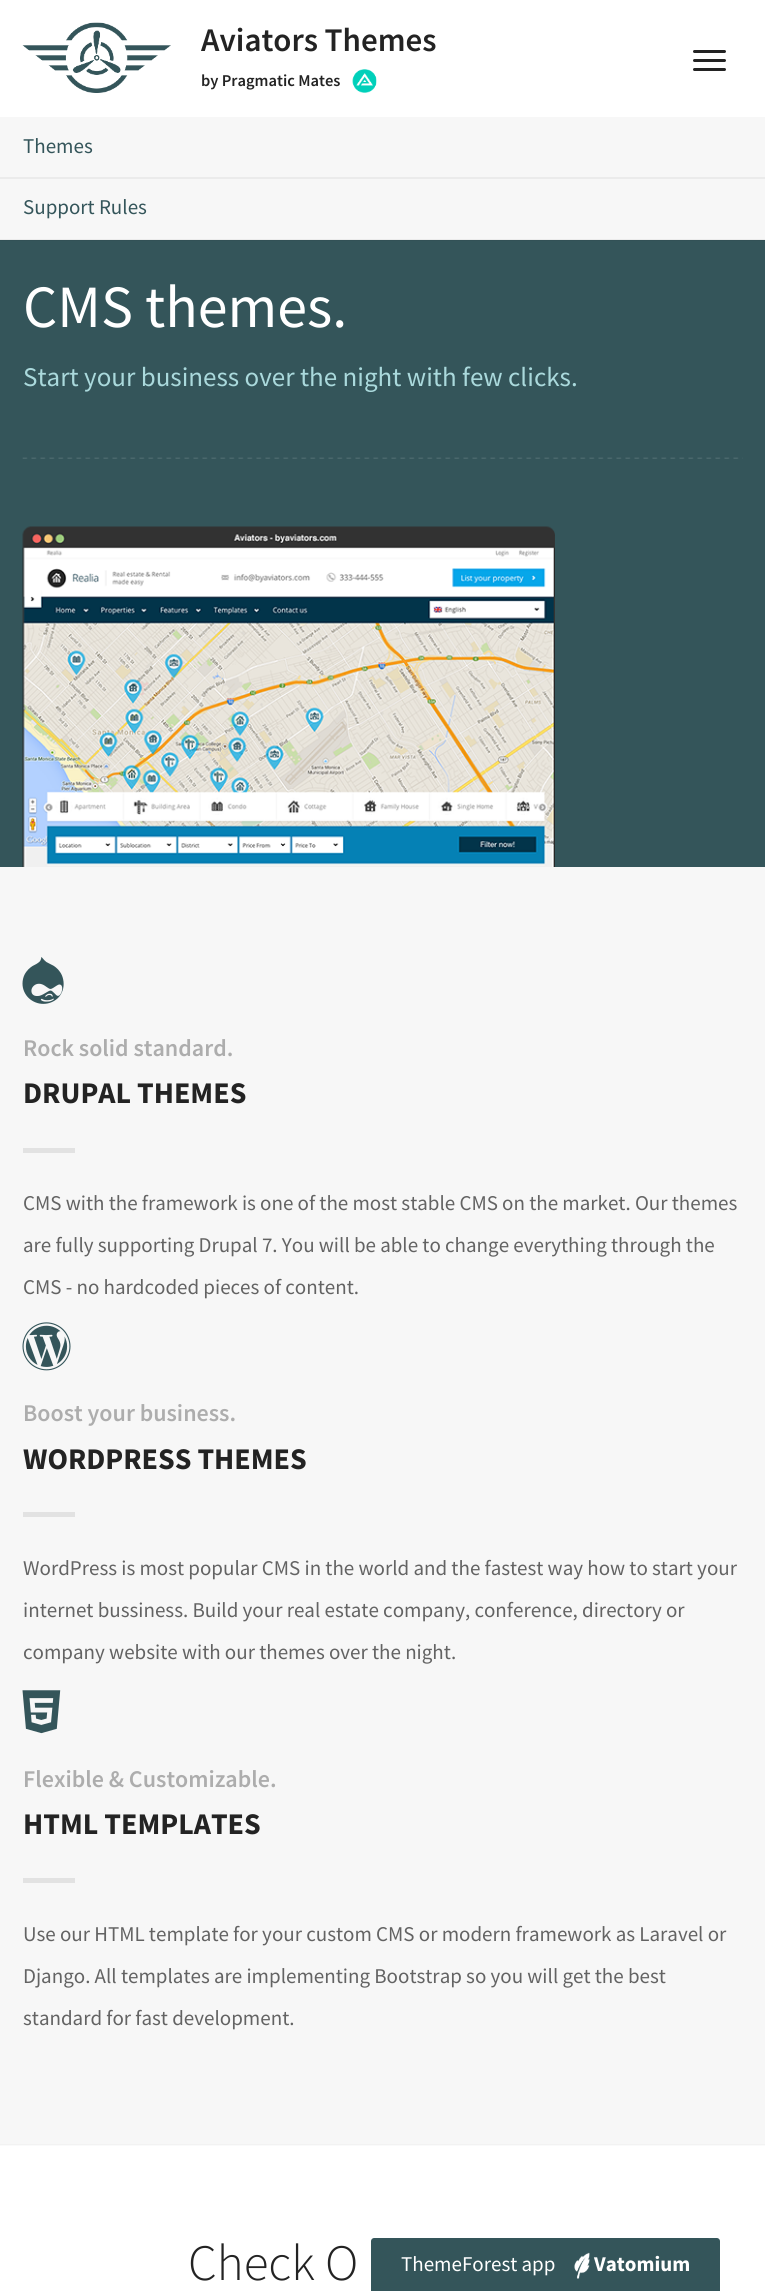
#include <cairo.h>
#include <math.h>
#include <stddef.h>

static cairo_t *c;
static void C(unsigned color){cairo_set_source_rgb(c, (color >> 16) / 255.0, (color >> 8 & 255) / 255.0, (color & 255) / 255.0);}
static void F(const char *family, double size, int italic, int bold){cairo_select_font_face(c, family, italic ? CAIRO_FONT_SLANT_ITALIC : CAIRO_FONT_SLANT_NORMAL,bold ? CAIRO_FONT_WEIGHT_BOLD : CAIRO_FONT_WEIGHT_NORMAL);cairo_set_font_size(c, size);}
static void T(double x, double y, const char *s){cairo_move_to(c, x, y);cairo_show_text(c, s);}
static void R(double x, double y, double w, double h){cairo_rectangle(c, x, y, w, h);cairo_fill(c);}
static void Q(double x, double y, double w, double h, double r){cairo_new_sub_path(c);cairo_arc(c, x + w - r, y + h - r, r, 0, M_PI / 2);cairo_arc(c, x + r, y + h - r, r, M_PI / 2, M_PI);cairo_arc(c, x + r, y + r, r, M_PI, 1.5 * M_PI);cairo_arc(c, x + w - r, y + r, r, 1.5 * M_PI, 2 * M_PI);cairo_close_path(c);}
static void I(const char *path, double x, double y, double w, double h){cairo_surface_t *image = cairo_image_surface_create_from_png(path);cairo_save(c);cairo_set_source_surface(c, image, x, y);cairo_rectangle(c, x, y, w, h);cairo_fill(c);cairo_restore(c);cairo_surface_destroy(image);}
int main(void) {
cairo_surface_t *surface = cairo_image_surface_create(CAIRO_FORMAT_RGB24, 765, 2291);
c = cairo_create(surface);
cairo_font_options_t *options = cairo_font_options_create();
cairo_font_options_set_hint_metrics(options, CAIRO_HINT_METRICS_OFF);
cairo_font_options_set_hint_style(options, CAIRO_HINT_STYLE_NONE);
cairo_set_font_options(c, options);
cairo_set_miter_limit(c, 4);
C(0xffffff);
cairo_paint(c);
C(0xfafafa);
R(0,2145,765,1);
I("1.png",22,22,149,71);
F("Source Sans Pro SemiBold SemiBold",33,0,0);
C(0x232323);
T(201,51,"Aviators Themes");
I("2.png",352,69,25,24);
F("Source Sans Pro SemiBold SemiBold",16.5,0,0);
T(201,86,"by Pragmatic Mates");
Q(693,50,33,3,1.5);
cairo_fill(c);
Q(693,59,33,3,1.5);
cairo_fill(c);
Q(693,68,33,3,1.5);
cairo_fill(c);
C(0xf7f7f7);
R(0,117,765,123);
C(0xebebeb);
R(0,177,765,2);
F("Source Sans Pro",21,0,0);
C(0x34555a);
T(23,153,"Themes");
R(0,240,765,627);
cairo_set_source_rgba(c,0,0,0,0.05);
R(0,239,765,2);
C(0x34555a);
T(23,214,"Support Rules");
F("Source Sans Pro",60,0,0);
C(0xffffff);
T(23,327,"CMS themes.");
I("3.png",22,457,721,2);
F("Source Sans Pro",27,0,0);
C(0xaad9dc);
T(23,386,"Start your business over the night with few clicks.");
I("4.png",22,526,533,341);
C(0xf7f7f7);
R(0,867,765,1277);
C(0xf2f2f2);
R(0,2144,765,1);
I("5.png",22,957,42,47);
F("Source Sans Pro SemiBold SemiBold",24,0,0);
C(0xadadad);
T(23,1056,"Rock solid standard.");
F("Source Sans Pro",30,0,1);
C(0x232323);
T(23,1103,"DRUPAL THEMES");
C(0xe2e2e2);
R(23,1148,52,5);
F("Source Sans Pro",21,0,0);
C(0x636363);
T(23,1210,"CMS with the framework is one of the most stable CMS on the market. Our themes");
T(23,1252,"are fully supporting Drupal 7. You will be able to change everything through the");
T(23,1294,"CMS - no hardcoded pieces of content.");
I("6.png",22,1322,49,49);
F("Source Sans Pro SemiBold SemiBold",24,0,0);
C(0xadadad);
T(23,1421,"Boost your business.");
F("Source Sans Pro",30,0,1);
C(0x232323);
T(23,1469,"WORDPRESS THEMES");
C(0xe2e2e2);
R(23,1512,52,5);
F("Source Sans Pro",21,0,0);
C(0x636363);
T(23,1575,"WordPress is most popular CMS in the world and the fastest way how to start your");
T(23,1617,"internet bussiness. Build your real estate company, conference, directory or");
T(23,1659,"company website with our themes over the night.");
I("7.png",22,1690,39,44);
F("Source Sans Pro SemiBold SemiBold",24,0,0);
C(0xadadad);
T(23,1787,"Flexible & Customizable.");
F("Source Sans Pro",30,0,1);
C(0x232323);
T(23,1834,"HTML TEMPLATES");
C(0xe2e2e2);
R(23,1878,52,5);
F("Source Sans Pro",21,0,0);
C(0x636363);
T(23,1941,"Use our HTML template for your custom CMS or modern framework as Laravel or");
T(23,1983,"Django. All templates are implementing Bootstrap so you will get the best");
T(23,2025,"standard for fast development.");
F("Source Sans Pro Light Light",51,0,0);
C(0x232323);
T(188,2280,"Check O");
C(0x34555a);
cairo_new_path(c);
cairo_move_to(c,374,2238);
cairo_line_to(c,717,2238);
cairo_curve_to(c,718.5,2238,720,2239.5,720,2241);
cairo_line_to(c,720,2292);
cairo_line_to(c,371,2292);
cairo_line_to(c,371,2241);
cairo_curve_to(c,371,2239.5,372.5,2238,374,2238);
cairo_close_path(c);
cairo_fill(c);
F("Source Sans Pro",21,0,0);
C(0xffffff);
T(401,2271,"ThemeForest app");
I("8.png",574,2252,16,27);
F("Source Sans Pro",21,0,1);
T(594,2271,"Vatomium");
cairo_surface_write_to_png(surface, "o.png");
cairo_font_options_destroy(options);
cairo_destroy(c);
cairo_surface_destroy(surface);
return 0;
}
